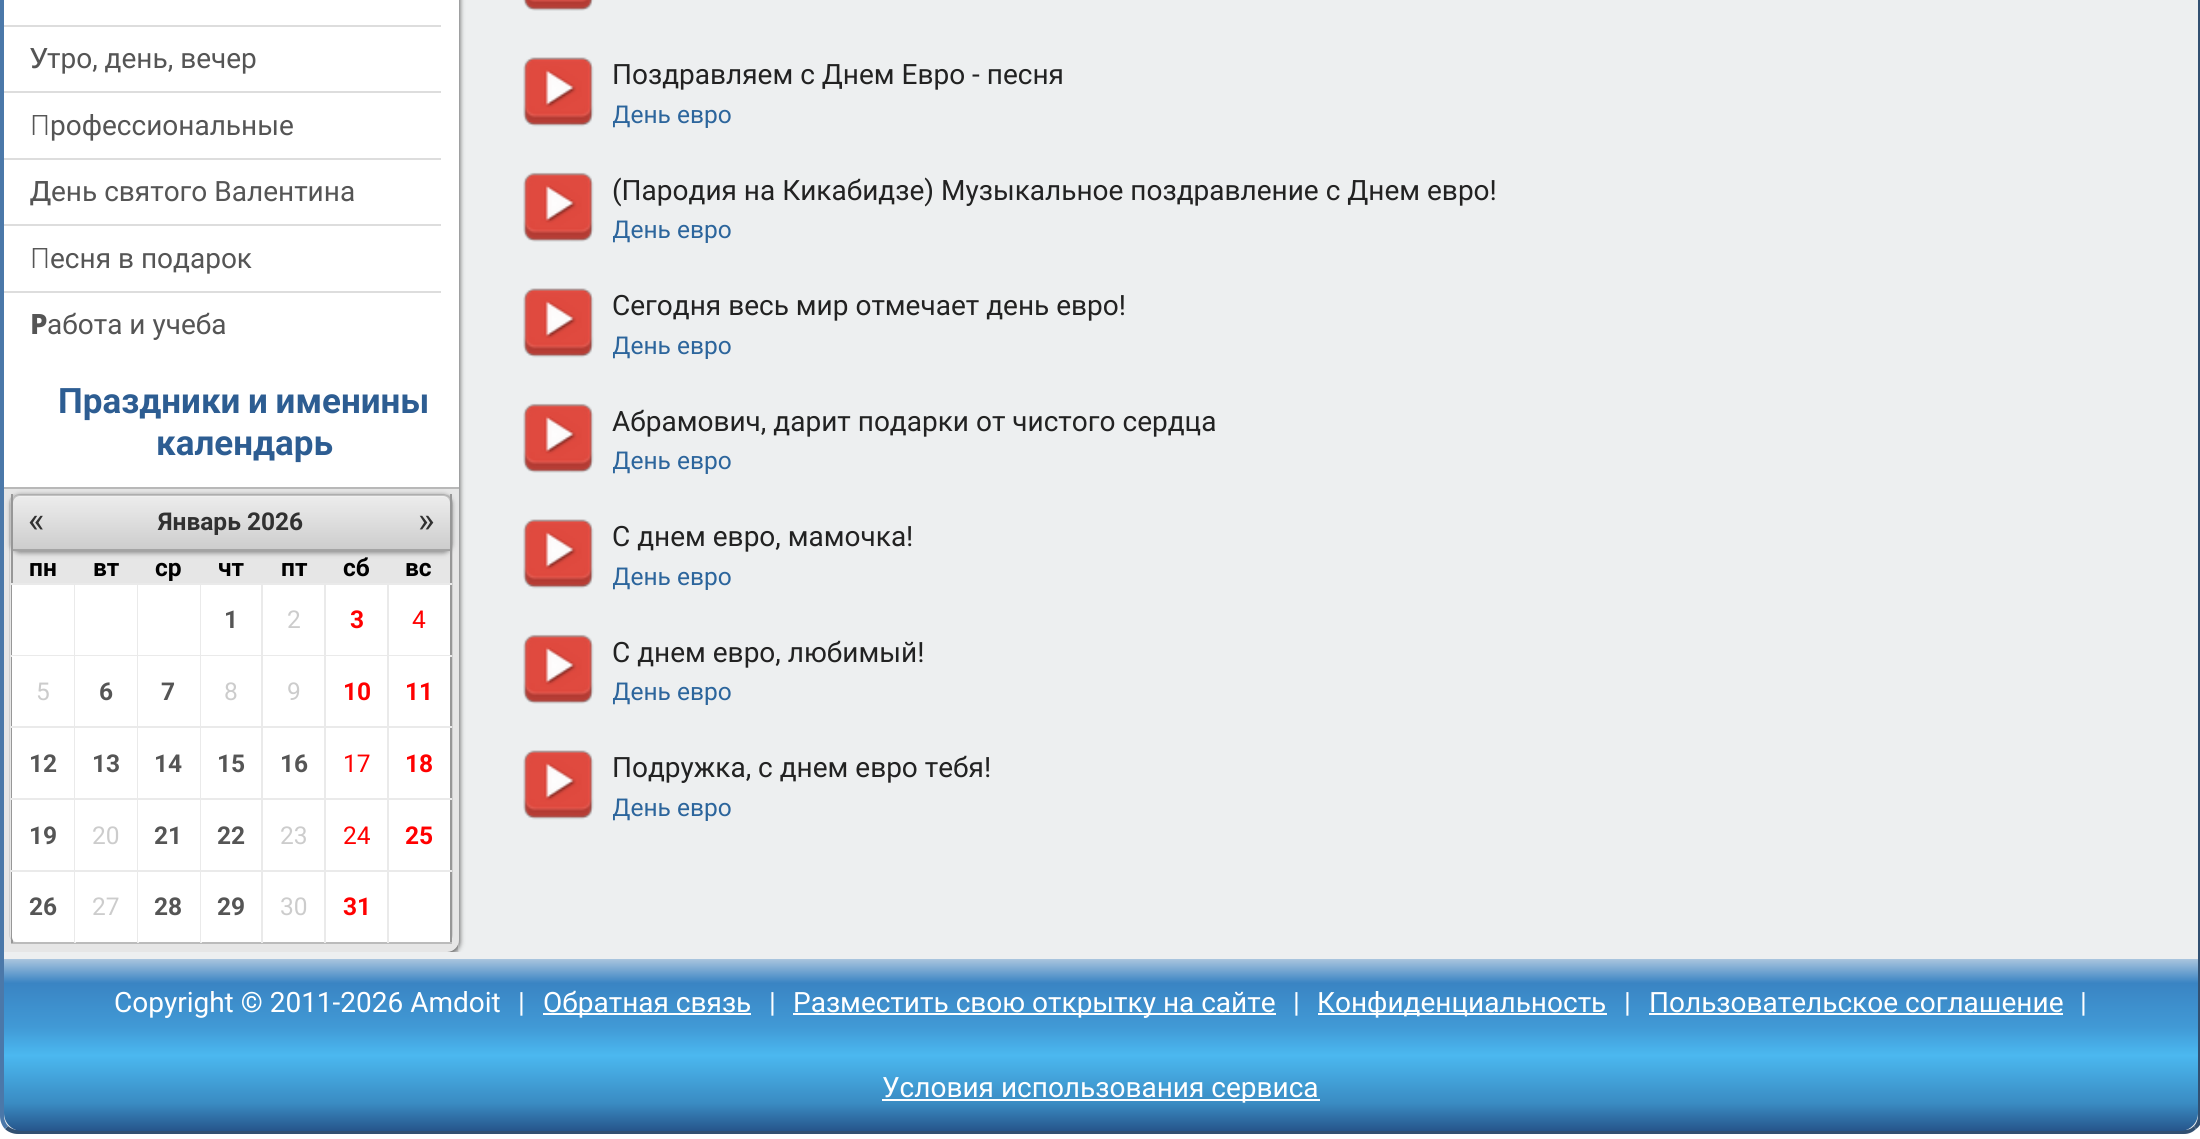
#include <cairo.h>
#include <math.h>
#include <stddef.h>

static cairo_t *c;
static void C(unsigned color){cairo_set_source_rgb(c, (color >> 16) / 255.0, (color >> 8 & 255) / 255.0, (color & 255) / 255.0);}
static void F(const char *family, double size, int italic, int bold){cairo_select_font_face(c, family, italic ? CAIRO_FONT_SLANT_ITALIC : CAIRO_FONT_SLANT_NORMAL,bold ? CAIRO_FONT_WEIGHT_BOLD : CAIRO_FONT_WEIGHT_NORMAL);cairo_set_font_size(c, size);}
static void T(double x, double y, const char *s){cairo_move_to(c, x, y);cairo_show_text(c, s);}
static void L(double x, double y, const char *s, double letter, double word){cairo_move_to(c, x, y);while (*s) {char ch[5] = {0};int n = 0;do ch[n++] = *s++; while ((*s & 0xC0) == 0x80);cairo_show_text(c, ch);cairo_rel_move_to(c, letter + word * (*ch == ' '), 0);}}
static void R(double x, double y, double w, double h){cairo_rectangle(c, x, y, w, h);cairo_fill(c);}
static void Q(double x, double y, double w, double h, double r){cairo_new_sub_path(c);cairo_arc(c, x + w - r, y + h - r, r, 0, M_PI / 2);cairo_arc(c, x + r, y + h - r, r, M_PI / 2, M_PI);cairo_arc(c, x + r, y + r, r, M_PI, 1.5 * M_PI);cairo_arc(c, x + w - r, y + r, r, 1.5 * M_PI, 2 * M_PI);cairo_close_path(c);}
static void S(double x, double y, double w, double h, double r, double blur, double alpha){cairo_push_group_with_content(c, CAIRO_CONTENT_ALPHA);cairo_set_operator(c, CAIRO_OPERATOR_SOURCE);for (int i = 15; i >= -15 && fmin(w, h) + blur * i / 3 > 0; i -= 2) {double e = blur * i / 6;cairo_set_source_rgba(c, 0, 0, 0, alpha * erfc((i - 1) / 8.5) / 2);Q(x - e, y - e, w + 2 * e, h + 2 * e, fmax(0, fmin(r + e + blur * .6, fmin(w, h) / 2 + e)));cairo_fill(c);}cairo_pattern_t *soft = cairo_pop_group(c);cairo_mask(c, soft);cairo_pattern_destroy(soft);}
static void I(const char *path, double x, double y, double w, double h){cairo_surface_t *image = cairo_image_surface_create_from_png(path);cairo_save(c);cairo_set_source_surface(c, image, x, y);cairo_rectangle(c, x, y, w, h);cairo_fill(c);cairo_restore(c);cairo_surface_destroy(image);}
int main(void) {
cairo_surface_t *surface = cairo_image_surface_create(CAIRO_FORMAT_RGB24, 2200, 1139);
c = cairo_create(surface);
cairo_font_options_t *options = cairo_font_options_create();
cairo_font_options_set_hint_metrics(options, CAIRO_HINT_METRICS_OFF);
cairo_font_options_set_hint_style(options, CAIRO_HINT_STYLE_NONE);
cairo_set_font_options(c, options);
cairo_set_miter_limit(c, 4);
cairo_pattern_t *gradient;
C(0xffffff);
cairo_paint(c);
C(0xedeff0);
cairo_new_path(c);
cairo_move_to(c,7,-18);
cairo_line_to(c,2195,-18);
cairo_curve_to(c,2199,-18,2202,-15,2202,-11);
cairo_line_to(c,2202,1116);
cairo_curve_to(c,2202,1126,2194,1134,2184,1134);
cairo_line_to(c,18,1134);
cairo_curve_to(c,8,1134,0,1126,0,1116);
cairo_line_to(c,0,-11);
cairo_curve_to(c,0,-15,3,-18,7,-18);
cairo_close_path(c);
cairo_fill(c);
C(0x325071);
cairo_new_path(c);
cairo_move_to(c,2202,1120);
cairo_curve_to(c,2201,1124,2199,1127,2196,1129);
cairo_line_to(c,2194,1126);
cairo_curve_to(c,2196,1124,2198,1120,2198,1116);
cairo_line_to(c,2198,-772);
cairo_curve_to(c,2198,-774,2197,-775,2196,-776);
cairo_line_to(c,2199,-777);
cairo_line_to(c,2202,-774);
cairo_close_path(c);
cairo_fill(c);
cairo_new_path(c);
cairo_move_to(c,18,1134);
cairo_line_to(c,2184,1134);
cairo_curve_to(c,2189,1134,2193,1132,2196,1129);
cairo_line_to(c,2194,1126);
cairo_curve_to(c,2191,1129,2188,1130,2184,1130);
cairo_line_to(c,18,1130);
cairo_curve_to(c,14,1130,10,1128,8,1126);
cairo_line_to(c,5,1129);
cairo_curve_to(c,8,1132,13,1134,18,1134);
cairo_close_path(c);
cairo_fill(c);
C(0x4b78a9);
cairo_new_path(c);
cairo_move_to(c,0,-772);
cairo_line_to(c,0,1116);
cairo_curve_to(c,0,1121,2,1126,5,1129);
cairo_line_to(c,8,1126);
cairo_curve_to(c,6,1124,4,1120,4,1116);
cairo_line_to(c,4,-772);
cairo_curve_to(c,4,-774,4,-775,5,-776);
cairo_line_to(c,3,-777);
cairo_curve_to(c,1,-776,0,-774,0,-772);
cairo_close_path(c);
cairo_fill(c);
gradient = cairo_pattern_create_linear(1101,959,1101,1131);
cairo_pattern_add_color_stop_rgba(gradient,0,0.808,0.859,0.914,1);
cairo_pattern_add_color_stop_rgba(gradient,0,0.667,0.773,0.871,1);
cairo_pattern_add_color_stop_rgba(gradient,.14,0.227,0.518,0.765,1);
cairo_pattern_add_color_stop_rgba(gradient,.4,0.255,0.604,0.839,1);
cairo_pattern_add_color_stop_rgba(gradient,.56,0.294,0.722,0.941,1);
cairo_pattern_add_color_stop_rgba(gradient,.84,0.227,0.545,0.761,1);
cairo_pattern_add_color_stop_rgba(gradient,1,0.149,0.333,0.545,1);
cairo_set_source(c,gradient);
cairo_pattern_destroy(gradient);
cairo_new_path(c);
cairo_move_to(c,4,959);
cairo_line_to(c,2198,959);
cairo_line_to(c,2198,1113);
cairo_curve_to(c,2198,1123,2190,1131,2180,1131);
cairo_line_to(c,22,1131);
cairo_curve_to(c,12,1131,4,1123,4,1113);
cairo_close_path(c);
cairo_fill(c);
cairo_save(c);
cairo_rectangle(c,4,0,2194,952);
cairo_clip(c);
C(0x666666);
S(5,-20,455,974,12,2.5,1);
cairo_restore(c);
C(0xffffff);
cairo_new_path(c);
cairo_move_to(c,4,-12);
cairo_line_to(c,459,-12);
cairo_line_to(c,459,940);
cairo_curve_to(c,459,946.5,453.5,952,447,952);
cairo_line_to(c,4,952);
cairo_close_path(c);
cairo_fill(c);
C(0xdddddd);
R(4,25,437,2);
R(4,91,437,2);
F("Noto Sans Medium",28,0,0);
C(0x555555);
T(30,68,"У");
F("Roboto",28,0,0);
T(47,68,"тро, день, вечер");
C(0xdddddd);
R(4,158,437,2);
F("Noto Sans Light",28,0,0);
C(0x555555);
T(30,135,"П");
F("Roboto",28,0,0);
T(50,135,"рофессиональные");
C(0xdddddd);
R(4,224,437,2);
F("Noto Sans Medium",28,0,0);
C(0x555555);
T(30,201,"Д");
F("Roboto",28,0,0);
T(51,201,"ень святого Валентина");
C(0xdddddd);
R(4,291,437,2);
F("Noto Sans Light",28,0,0);
C(0x555555);
T(30,268,"П");
F("Roboto",28,0,0);
T(50,268,"есня в подарок");
F("Noto Sans ExtraBold",28,0,0);
T(30,334,"Р");
F("Roboto",28,0,0);
T(47,334,"абота и учеба");
F("Roboto",35,0,1);
C(0x2d5d92);
L(58,413,"Праздники и именины",0,-1);
T(156,455,"календарь");
cairo_save(c);
cairo_rectangle(c,4,0,2194,952);
cairo_clip(c);
cairo_set_source_rgba(c,1,1,1,0.4);
cairo_new_path(c);
cairo_move_to(c,4,952);
cairo_line_to(c,4,954);
cairo_line_to(c,459,954);
cairo_line_to(c,459,488);
cairo_line_to(c,458,488);
cairo_line_to(c,458,952);
cairo_close_path(c);
cairo_fill(c);
cairo_restore(c);
cairo_set_source_rgba(c,0,0,0,0.1);
R(4,489,455,463);
C(0xb8b8b8);
R(4,487,455,2);
C(0xcfcfcf);
cairo_new_path(c);
cairo_move_to(c,15,494);
cairo_curve_to(c,12,495,9,499,9,503);
cairo_line_to(c,9,934);
cairo_curve_to(c,9,939,12,942,17,943);
cairo_curve_to(c,13,942,10,939,10,934);
cairo_line_to(c,10,502);
cairo_curve_to(c,10,499,13,496,15,494);
cairo_close_path(c);
cairo_fill(c);
cairo_new_path(c);
cairo_move_to(c,445,943);
cairo_curve_to(c,450,942,453,939,453,934);
cairo_line_to(c,453,503);
cairo_curve_to(c,453,499,450,495,447,494);
cairo_curve_to(c,449,496,452,499,452,502);
cairo_line_to(c,452,934);
cairo_curve_to(c,452,939,449,942,445,943);
cairo_close_path(c);
cairo_fill(c);
C(0x000000);
S(11,495,441,58,9,2.5,.4);
gradient = cairo_pattern_create_linear(231,494,231,551);
cairo_pattern_add_color_stop_rgba(gradient,0,0.933,0.933,0.933,1);
cairo_pattern_add_color_stop_rgba(gradient,1,0.8,0.8,0.8,1);
cairo_set_source(c,gradient);
cairo_pattern_destroy(gradient);
cairo_new_path(c);
cairo_move_to(c,20,494);
cairo_line_to(c,443,494);
cairo_curve_to(c,448,494,452,498,452,503);
cairo_line_to(c,452,551);
cairo_line_to(c,11,551);
cairo_line_to(c,11,503);
cairo_curve_to(c,11,498,15,494,20,494);
cairo_close_path(c);
cairo_fill(c);
cairo_set_source_rgba(c,1,1,1,0.25);
cairo_new_path(c);
cairo_move_to(c,19,497);
cairo_line_to(c,443,497);
cairo_curve_to(c,448,497,452,501,452,506);
cairo_line_to(c,452,503);
cairo_curve_to(c,452,498,448,494,443,494);
cairo_line_to(c,20,494);
cairo_curve_to(c,15,494,12,497,11,502);
cairo_curve_to(c,13,499,16,497,19,497);
cairo_close_path(c);
cairo_fill(c);
cairo_set_source_rgba(c,0,0,0,0.1);
cairo_new_path(c);
cairo_move_to(c,19,495);
cairo_line_to(c,443,495);
cairo_curve_to(c,448,495,452,499,452,504);
cairo_line_to(c,452,503);
cairo_curve_to(c,452,498,448,494,443,494);
cairo_line_to(c,20,494);
cairo_curve_to(c,17,494,15,495,13,497);
cairo_curve_to(c,15,496,17,495,19,495);
cairo_close_path(c);
cairo_fill(c);
cairo_new_path(c);
cairo_move_to(c,20,495);
cairo_line_to(c,443,495);
cairo_curve_to(c,447.5,495,451,498.5,451,503);
cairo_line_to(c,451,550);
cairo_line_to(c,12,550);
cairo_line_to(c,12,503);
cairo_curve_to(c,12,498.5,15.5,495,20,495);
cairo_close_path(c);
cairo_set_source_rgba(c,0,0,0,0.2);
cairo_stroke(c);
C(0x979797);
R(450,494,2,449);
C(0xbbbbbb);
R(11,942,441,2);
C(0x979797);
R(11,494,2,449);
F("Roboto",35,0,0);
C(0x313131);
T(28,532,"«");
F("Roboto",24.5,0,1);
T(158,530,"Январь 2026");
F("Roboto",35,0,0);
T(418,532,"»");
F("Roboto",24.5,0,1);
C(0x000000);
T(29,576,"пн");
T(93,576,"вт");
T(155,576,"ср");
T(218,576,"чт");
T(281,576,"пт");
T(343,576,"сб");
T(405,576,"вс");
C(0xeaeaea);
R(387,583,65,2);
R(387,655,65,2);
R(387,726,65,2);
R(387,798,65,2);
R(387,870,65,2);
R(387,870,2,73);
R(324,870,65,2);
R(387,798,2,74);
R(324,798,65,2);
R(387,726,2,74);
R(324,726,65,2);
R(387,655,2,73);
R(324,655,65,2);
R(387,583,2,73);
R(324,583,65,2);
R(324,870,2,73);
R(261,870,65,2);
R(324,798,2,74);
R(261,798,65,2);
R(324,726,2,74);
R(261,726,65,2);
R(324,655,2,73);
R(261,655,65,2);
R(324,583,2,73);
R(261,583,65,2);
R(261,870,2,73);
R(200,870,63,2);
R(261,798,2,74);
R(200,798,63,2);
R(261,726,2,74);
R(200,726,63,2);
R(261,655,2,73);
R(200,655,63,2);
R(261,583,2,73);
R(200,583,63,2);
R(200,870,2,73);
R(137,870,64,2);
R(200,798,2,74);
R(137,798,64,2);
R(200,726,2,74);
R(137,726,64,2);
R(200,655,2,73);
R(137,655,64,2);
R(200,583,2,73);
R(137,583,64,2);
R(137,870,2,73);
R(74,870,64,2);
R(137,798,2,74);
R(74,798,64,2);
R(137,726,2,74);
R(74,726,64,2);
R(137,655,2,73);
R(74,655,64,2);
R(137,583,2,73);
R(74,583,64,2);
R(74,870,2,73);
R(11,870,64,2);
R(74,798,2,74);
R(11,798,64,2);
R(74,726,2,74);
R(11,726,64,2);
R(74,655,2,73);
R(11,655,64,2);
R(74,583,2,73);
R(11,583,64,2);
C(0xffffff);
R(12,585,62,70);
R(75,585,62,70);
R(138,585,62,70);
R(201,585,60,70);
C(0x555555);
T(224,628,"1");
C(0xffffff);
R(263,585,61,70);
F("Roboto",24.5,0,0);
C(0xcccccc);
T(287,628,"2");
C(0xffffff);
R(326,585,61,70);
F("Roboto",24.5,0,1);
C(0xff0000);
T(350,628,"3");
C(0xffffff);
R(389,585,61,70);
F("Roboto",24.5,0,0);
C(0xff0000);
T(412,628,"4");
C(0xffffff);
R(12,656,62,70);
C(0xcccccc);
T(36,700,"5");
C(0xffffff);
R(75,656,62,70);
F("Roboto",24.5,0,1);
C(0x555555);
T(99,700,"6");
C(0xffffff);
R(138,656,62,70);
C(0x555555);
T(161,700,"7");
C(0xffffff);
R(201,656,60,70);
F("Roboto",24.5,0,0);
C(0xcccccc);
T(224,700,"8");
C(0xffffff);
R(263,656,61,70);
C(0xcccccc);
T(287,700,"9");
C(0xffffff);
R(326,656,61,70);
F("Roboto",24.5,0,1);
C(0xff0000);
T(343,700,"10");
C(0xffffff);
R(389,656,61,70);
C(0xff0000);
T(405,700,"11");
C(0xffffff);
R(12,728,62,70);
C(0x555555);
T(29,772,"12");
C(0xffffff);
R(75,728,62,70);
C(0x555555);
T(92,772,"13");
C(0xffffff);
R(138,728,62,70);
C(0x555555);
T(154,772,"14");
C(0xffffff);
R(201,728,60,70);
C(0x555555);
T(217,772,"15");
C(0xffffff);
R(263,728,61,70);
C(0x555555);
T(280,772,"16");
C(0xffffff);
R(326,728,61,70);
F("Roboto",24.5,0,0);
C(0xff0000);
T(343,772,"17");
C(0xffffff);
R(389,728,61,70);
F("Roboto",24.5,0,1);
C(0xff0000);
T(405,772,"18");
C(0xffffff);
R(12,800,62,70);
C(0x555555);
T(29,844,"19");
C(0xffffff);
R(75,800,62,70);
F("Roboto",24.5,0,0);
C(0xcccccc);
T(92,844,"20");
C(0xffffff);
R(138,800,62,70);
F("Roboto",24.5,0,1);
C(0x555555);
T(154,844,"21");
C(0xffffff);
R(201,800,60,70);
C(0x555555);
T(217,844,"22");
C(0xffffff);
R(263,800,61,70);
F("Roboto",24.5,0,0);
C(0xcccccc);
T(280,844,"23");
C(0xffffff);
R(326,800,61,70);
C(0xff0000);
T(343,844,"24");
C(0xffffff);
R(389,800,61,70);
F("Roboto",24.5,0,1);
C(0xff0000);
T(405,844,"25");
C(0xffffff);
cairo_new_path(c);
cairo_move_to(c,12,872);
cairo_line_to(c,74,872);
cairo_line_to(c,74,942);
cairo_line_to(c,17,942);
cairo_curve_to(c,14,942,12,940,12,937);
cairo_close_path(c);
cairo_fill(c);
C(0x555555);
T(29,915,"26");
C(0xffffff);
R(75,872,62,70);
F("Roboto",24.5,0,0);
C(0xcccccc);
T(92,915,"27");
C(0xffffff);
R(138,872,62,70);
F("Roboto",24.5,0,1);
C(0x555555);
T(154,915,"28");
C(0xffffff);
R(201,872,60,70);
C(0x555555);
T(217,915,"29");
C(0xffffff);
R(263,872,61,70);
F("Roboto",24.5,0,0);
C(0xcccccc);
T(280,915,"30");
C(0xffffff);
R(326,872,61,70);
F("Roboto",24.5,0,1);
C(0xff0000);
T(343,915,"31");
C(0xffffff);
R(389,872,61,70);
I("1.png",523,0,71,11);
I("2.png",523,57,71,70);
F("Roboto",28,0,0);
C(0x222222);
T(612,84,"Поздравляем с Днем Евро - песня");
cairo_save(c);
cairo_rectangle(c,613,95,1550,40);
cairo_clip(c);
F("Roboto",24.5,0,0);
C(0x2c659c);
T(612,123,"День евро");
cairo_restore(c);
I("3.png",523,172,71,70);
T(612,200,"(Пародия на Кикабидзе) Музыкальное поздравление с Днем евро!");
cairo_save(c);
cairo_rectangle(c,613,210,1550,40);
cairo_clip(c);
F("Roboto",24.5,0,0);
C(0x2c659c);
T(612,238,"День евро");
cairo_restore(c);
I("2.png",523,288,71,70);
T(612,315,"Сегодня весь мир отмечает день евро!");
cairo_save(c);
cairo_rectangle(c,613,326,1550,40);
cairo_clip(c);
F("Roboto",24.5,0,0);
C(0x2c659c);
T(612,354,"День евро");
cairo_restore(c);
I("3.png",523,403,71,70);
T(612,431,"Абрамович, дарит подарки от чистого сердца");
cairo_save(c);
cairo_rectangle(c,613,441,1550,40);
cairo_clip(c);
F("Roboto",24.5,0,0);
C(0x2c659c);
T(612,469,"День евро");
cairo_restore(c);
I("2.png",523,519,71,70);
T(612,546,"С днем евро, мамочка!");
cairo_save(c);
cairo_rectangle(c,613,557,1550,40);
cairo_clip(c);
F("Roboto",24.5,0,0);
C(0x2c659c);
T(612,585,"День евро");
cairo_restore(c);
I("3.png",523,634,71,70);
T(612,662,"С днем евро, любимый!");
cairo_save(c);
cairo_rectangle(c,613,672,1550,40);
cairo_clip(c);
F("Roboto",24.5,0,0);
C(0x2c659c);
T(612,700,"День евро");
cairo_restore(c);
I("2.png",523,750,71,70);
T(612,777,"Подружка, с днем евро тебя!");
cairo_save(c);
cairo_rectangle(c,613,788,1550,40);
cairo_clip(c);
F("Roboto",24.5,0,0);
C(0x2c659c);
T(612,816,"День евро");
cairo_restore(c);
C(0xffffff);
T(114,1012,"Copyright © 2011-2026 Amdoit");
T(518,1012,"|");
R(543,1013,208,2);
T(543,1012,"Обратная связь");
T(769,1012,"|");
R(793,1013,483,2);
T(793,1012,"Разместить свою открытку на сайте");
T(1293,1012,"|");
R(1318,1013,289,2);
T(1317,1012,"Конфиденциальность");
T(1624,1012,"|");
T(1649,1012,"Пользовательское соглашение");
R(1649,1013,414,2);
T(2080,1012,"|");
R(882,1099,438,2);
T(882,1097,"Условия использования сервиса");
cairo_surface_write_to_png(surface, "o.png");
cairo_font_options_destroy(options);
cairo_destroy(c);
cairo_surface_destroy(surface);
return 0;
}
